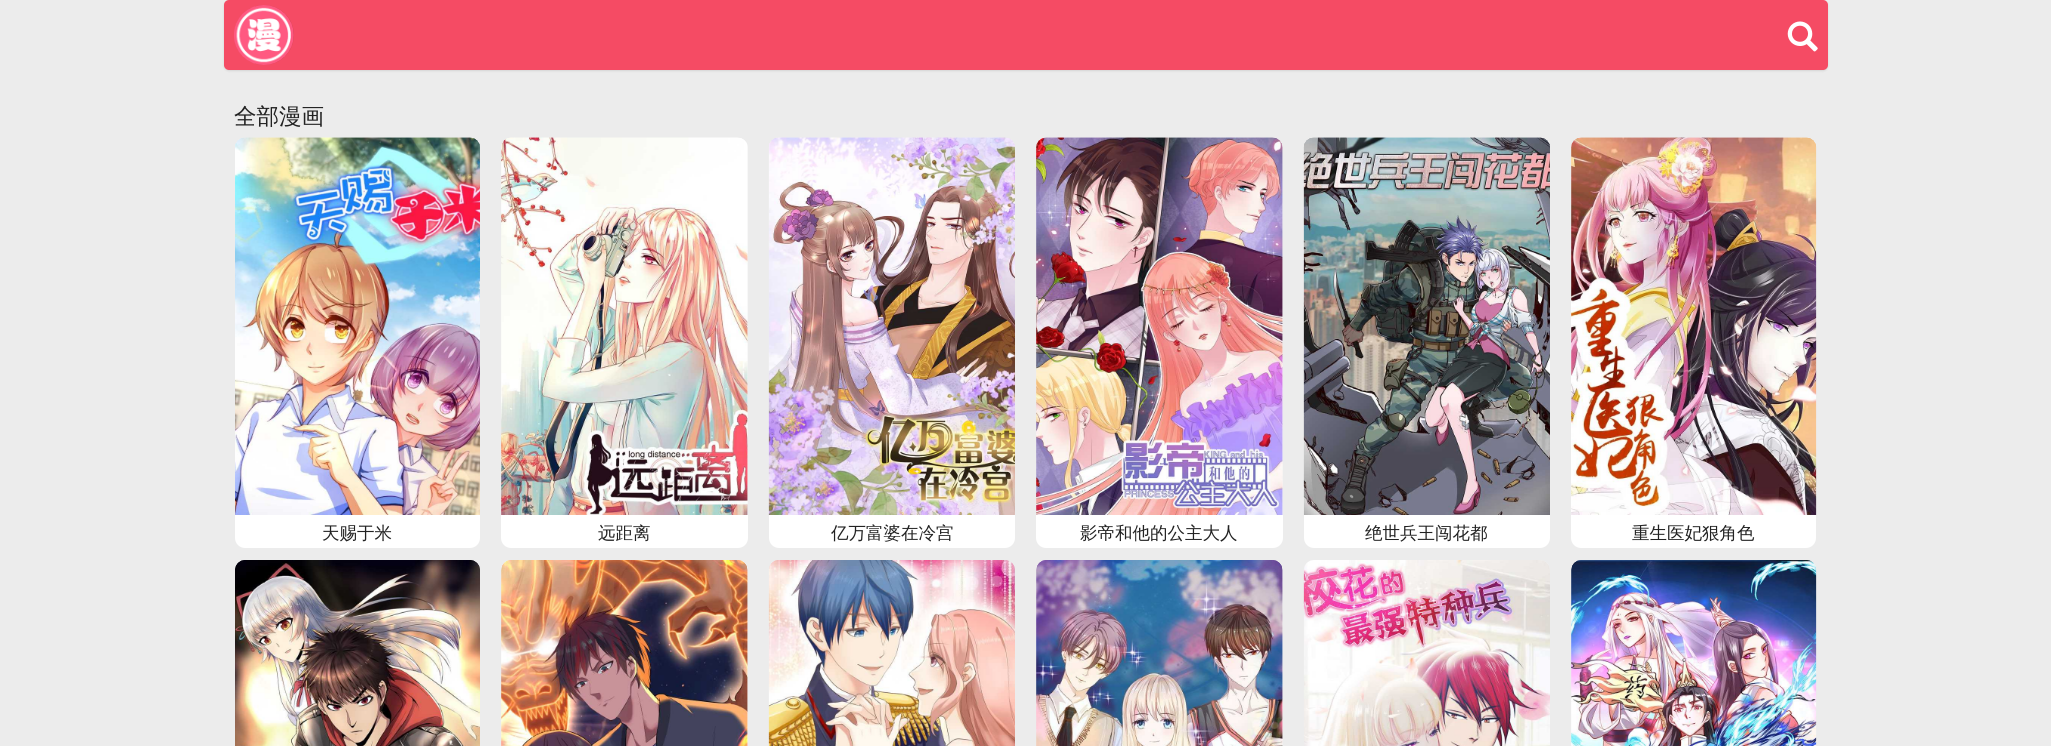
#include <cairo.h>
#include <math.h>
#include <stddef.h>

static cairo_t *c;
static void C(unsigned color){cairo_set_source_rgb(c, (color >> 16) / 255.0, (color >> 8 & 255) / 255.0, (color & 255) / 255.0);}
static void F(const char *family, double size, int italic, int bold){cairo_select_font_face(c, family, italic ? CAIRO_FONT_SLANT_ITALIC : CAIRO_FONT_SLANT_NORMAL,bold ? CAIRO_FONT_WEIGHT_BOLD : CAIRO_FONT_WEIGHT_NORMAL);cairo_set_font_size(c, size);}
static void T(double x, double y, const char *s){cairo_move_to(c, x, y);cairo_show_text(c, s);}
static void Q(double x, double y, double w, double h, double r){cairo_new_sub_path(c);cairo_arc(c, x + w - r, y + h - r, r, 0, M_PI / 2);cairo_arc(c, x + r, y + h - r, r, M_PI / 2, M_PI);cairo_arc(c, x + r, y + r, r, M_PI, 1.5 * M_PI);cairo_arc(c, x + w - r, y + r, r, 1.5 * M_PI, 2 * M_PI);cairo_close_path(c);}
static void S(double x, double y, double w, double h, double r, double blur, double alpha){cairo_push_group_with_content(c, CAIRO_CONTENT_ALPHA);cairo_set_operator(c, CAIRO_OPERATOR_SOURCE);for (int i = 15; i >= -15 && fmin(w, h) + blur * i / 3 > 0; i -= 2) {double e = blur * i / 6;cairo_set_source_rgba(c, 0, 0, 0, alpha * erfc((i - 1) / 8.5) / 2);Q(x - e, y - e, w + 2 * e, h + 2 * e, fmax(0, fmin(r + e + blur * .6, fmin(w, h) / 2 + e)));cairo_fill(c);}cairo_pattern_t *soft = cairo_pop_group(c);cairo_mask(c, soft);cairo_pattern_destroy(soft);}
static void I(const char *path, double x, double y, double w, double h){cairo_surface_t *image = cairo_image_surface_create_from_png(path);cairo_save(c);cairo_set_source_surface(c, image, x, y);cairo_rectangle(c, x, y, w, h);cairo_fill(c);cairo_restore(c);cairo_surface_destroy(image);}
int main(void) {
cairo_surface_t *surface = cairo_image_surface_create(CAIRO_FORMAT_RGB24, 2051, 746);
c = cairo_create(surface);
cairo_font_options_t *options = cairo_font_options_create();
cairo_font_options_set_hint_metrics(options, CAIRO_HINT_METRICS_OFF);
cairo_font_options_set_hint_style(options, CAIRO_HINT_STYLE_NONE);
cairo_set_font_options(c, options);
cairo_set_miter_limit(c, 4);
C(0xececec);
cairo_paint(c);
C(0x000000);
S(224,1,1604,70,5,1,.1);
C(0xf54b64);
Q(224,0,1604,70,5);
cairo_fill(c);
C(0xd84258);
cairo_arc(c,264,35,30,0,2 * M_PI);
cairo_fill(c);
I("1.png",234,5,60,60);
I("2.png",1787,21,31,31);
F("WenQuanYi Zen Hei Medium",22.5,0,0);
C(0x222222);
T(234,124,"全部漫画");
C(0xffffff);
Q(235,138,245,410,10);
cairo_fill(c);
I("3.png",235,137,245,378);
I("4.png",235,137,245,11);
F("WenQuanYi Zen Hei Medium",17.5,0,0);
C(0x222222);
T(322,539,"天赐于米");
C(0xffffff);
Q(501,138,247,410,10);
cairo_fill(c);
C(0xf1f1f1);
cairo_new_path(c);
cairo_move_to(c,511,138);
cairo_line_to(c,738,138);
cairo_curve_to(c,743.5,138,748,142.5,748,148);
cairo_line_to(c,748,515);
cairo_line_to(c,501,515);
cairo_line_to(c,501,148);
cairo_curve_to(c,501,142.5,505.5,138,511,138);
cairo_close_path(c);
cairo_fill(c);
I("5.png",501,137,247,378);
I("6.png",501,137,247,378);
C(0x222222);
T(598,539,"远距离");
C(0xffffff);
Q(769,138,246,410,10);
cairo_fill(c);
I("7.png",768,137,247,378);
I("8.png",768,137,247,378);
C(0x222222);
T(831,539,"亿万富婆在冷宫");
C(0xffffff);
Q(1036,138,247,410,10);
cairo_fill(c);
C(0xf1f1f1);
cairo_new_path(c);
cairo_move_to(c,1046,138);
cairo_line_to(c,1273,138);
cairo_curve_to(c,1278.5,138,1283,142.5,1283,148);
cairo_line_to(c,1283,515);
cairo_line_to(c,1036,515);
cairo_line_to(c,1036,148);
cairo_curve_to(c,1036,142.5,1040.5,138,1046,138);
cairo_close_path(c);
cairo_fill(c);
I("9.png",1036,137,247,378);
I("10.png",1036,137,247,378);
C(0x222222);
T(1080,539,"影帝和他的公主大人");
C(0xffffff);
Q(1304,138,246,410,10);
cairo_fill(c);
I("11.png",1303,137,247,378);
I("12.png",1303,137,247,360);
C(0x222222);
T(1365,539,"绝世兵王闯花都");
C(0xffffff);
Q(1571,138,245,410,10);
cairo_fill(c);
I("13.png",1571,137,246,378);
I("14.png",1571,137,246,378);
C(0x222222);
T(1632,539,"重生医妃狠角色");
I("15.png",235,560,245,186);
I("16.png",235,560,245,10);
C(0xf1f1f1);
cairo_new_path(c);
cairo_move_to(c,511,560);
cairo_line_to(c,738,560);
cairo_curve_to(c,743.5,560,748,564.5,748,570);
cairo_line_to(c,748,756);
cairo_line_to(c,501,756);
cairo_line_to(c,501,570);
cairo_curve_to(c,501,564.5,505.5,560,511,560);
cairo_close_path(c);
cairo_fill(c);
I("17.png",501,560,247,186);
I("18.png",501,560,247,186);
I("19.png",768,560,247,186);
I("20.png",768,560,247,186);
cairo_new_path(c);
cairo_move_to(c,1046,560);
cairo_line_to(c,1273,560);
cairo_curve_to(c,1278.5,560,1283,564.5,1283,570);
cairo_line_to(c,1283,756);
cairo_line_to(c,1036,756);
cairo_line_to(c,1036,570);
cairo_curve_to(c,1036,564.5,1040.5,560,1046,560);
cairo_close_path(c);
cairo_fill(c);
I("21.png",1036,560,247,186);
I("22.png",1036,560,247,186);
cairo_new_path(c);
cairo_move_to(c,1314,560);
cairo_line_to(c,1540,560);
cairo_curve_to(c,1545.5,560,1550,564.5,1550,570);
cairo_line_to(c,1550,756);
cairo_line_to(c,1304,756);
cairo_line_to(c,1304,570);
cairo_curve_to(c,1304,564.5,1308.5,560,1314,560);
cairo_close_path(c);
cairo_fill(c);
I("23.png",1303,560,247,186);
I("24.png",1303,573,1,34);
cairo_new_path(c);
cairo_move_to(c,1581,560);
cairo_line_to(c,1806,560);
cairo_curve_to(c,1811.5,560,1816,564.5,1816,570);
cairo_line_to(c,1816,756);
cairo_line_to(c,1571,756);
cairo_line_to(c,1571,570);
cairo_curve_to(c,1571,564.5,1575.5,560,1581,560);
cairo_close_path(c);
cairo_fill(c);
I("25.png",1571,560,246,186);
I("26.png",1571,560,246,185);
cairo_surface_write_to_png(surface, "o.png");
cairo_font_options_destroy(options);
cairo_destroy(c);
cairo_surface_destroy(surface);
return 0;
}
